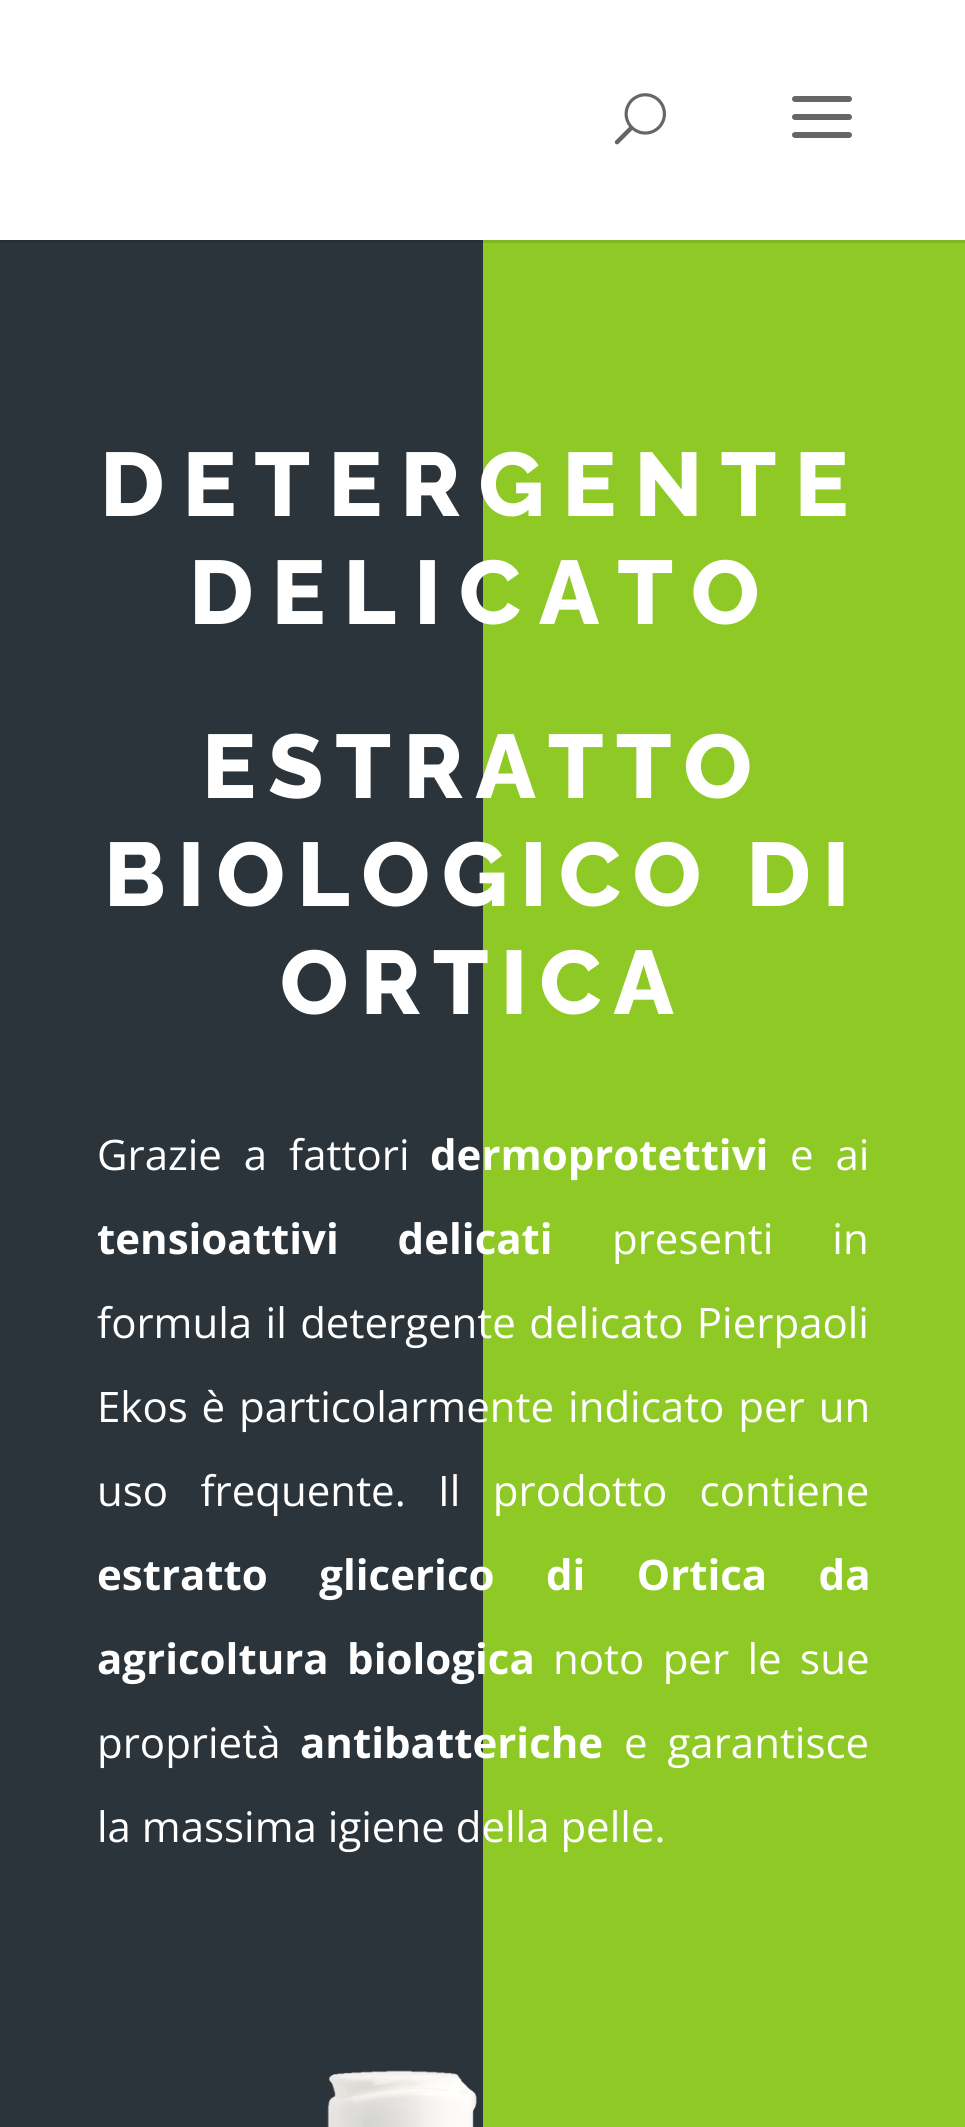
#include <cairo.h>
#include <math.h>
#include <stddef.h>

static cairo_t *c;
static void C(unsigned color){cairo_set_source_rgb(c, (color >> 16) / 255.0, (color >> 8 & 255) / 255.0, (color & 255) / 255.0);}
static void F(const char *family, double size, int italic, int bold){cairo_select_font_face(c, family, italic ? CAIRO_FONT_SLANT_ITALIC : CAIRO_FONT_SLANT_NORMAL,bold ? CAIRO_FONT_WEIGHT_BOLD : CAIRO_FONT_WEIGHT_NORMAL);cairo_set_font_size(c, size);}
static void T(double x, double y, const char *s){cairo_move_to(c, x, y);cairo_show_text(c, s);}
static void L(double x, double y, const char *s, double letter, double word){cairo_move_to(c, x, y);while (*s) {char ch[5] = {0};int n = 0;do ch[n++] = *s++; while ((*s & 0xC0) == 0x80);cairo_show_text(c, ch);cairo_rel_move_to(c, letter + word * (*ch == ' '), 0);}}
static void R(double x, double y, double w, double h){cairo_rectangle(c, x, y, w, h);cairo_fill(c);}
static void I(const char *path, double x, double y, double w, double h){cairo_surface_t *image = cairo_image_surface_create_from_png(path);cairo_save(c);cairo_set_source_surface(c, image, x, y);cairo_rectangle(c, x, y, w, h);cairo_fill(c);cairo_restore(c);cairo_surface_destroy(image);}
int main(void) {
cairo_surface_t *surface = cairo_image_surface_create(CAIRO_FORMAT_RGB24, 965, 2127);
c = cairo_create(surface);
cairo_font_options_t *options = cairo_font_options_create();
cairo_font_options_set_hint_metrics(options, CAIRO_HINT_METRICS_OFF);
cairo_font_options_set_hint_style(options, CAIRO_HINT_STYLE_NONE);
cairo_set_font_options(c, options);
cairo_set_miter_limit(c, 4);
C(0xffffff);
cairo_paint(c);
I("1.png",614,93,52,52);
I("2.png",792,96,60,42);
C(0x2b343b);
R(0,243,483,1884);
C(0x272f35);
R(0,240,483,3);
C(0x8fc925);
R(483,243,482,1884);
C(0x81b521);
R(483,240,482,3);
F("Raleway ExtraBold",90,0,0);
C(0xffffff);
L(100,516,"DETERGENTE",18,0);
L(189,624,"DELICATO",18,0);
L(202,798,"ESTRATTO",12,0);
L(104,906,"BIOLOGICO DI",12,0);
L(280,1014,"ORTICA",12,0);
F("Open Sans",42,0,0);
L(97,1170,"Grazie a fattori",0,11);
F("Open Sans",42,0,1);
T(430,1170,"dermoprotettivi");
F("Open Sans",42,0,0);
L(790,1170,"e ai",0,11);
F("Open Sans",42,0,1);
L(97,1254,"tensioattivi delicati",0,48);
F("Open Sans",42,0,0);
L(612,1254,"presenti in",0,48);
L(97,1338,"formula il detergente delicato Pierpaoli",0,2.5);
L(97,1422,"Ekos è particolarmente indicato per un",0,3);
L(97,1506,"uso frequente. Il prodotto contiene",0,21.5);
F("Open Sans",42,0,1);
L(97,1590,"estratto glicerico di Ortica da",0,40.5);
L(97,1674,"agricoltura biologica",0,7.5);
F("Open Sans",42,0,0);
L(553,1674,"noto per le sue",0,7.5);
T(97,1758,"proprietà");
F("Open Sans",42,0,1);
T(300,1758,"antibatteriche");
F("Open Sans",42,0,0);
L(624,1758,"e garantisce",0,9);
T(97,1842,"la massima igiene della pelle.");
I("3.png",327,2070,150,57);
cairo_surface_write_to_png(surface, "o.png");
cairo_font_options_destroy(options);
cairo_destroy(c);
cairo_surface_destroy(surface);
return 0;
}
